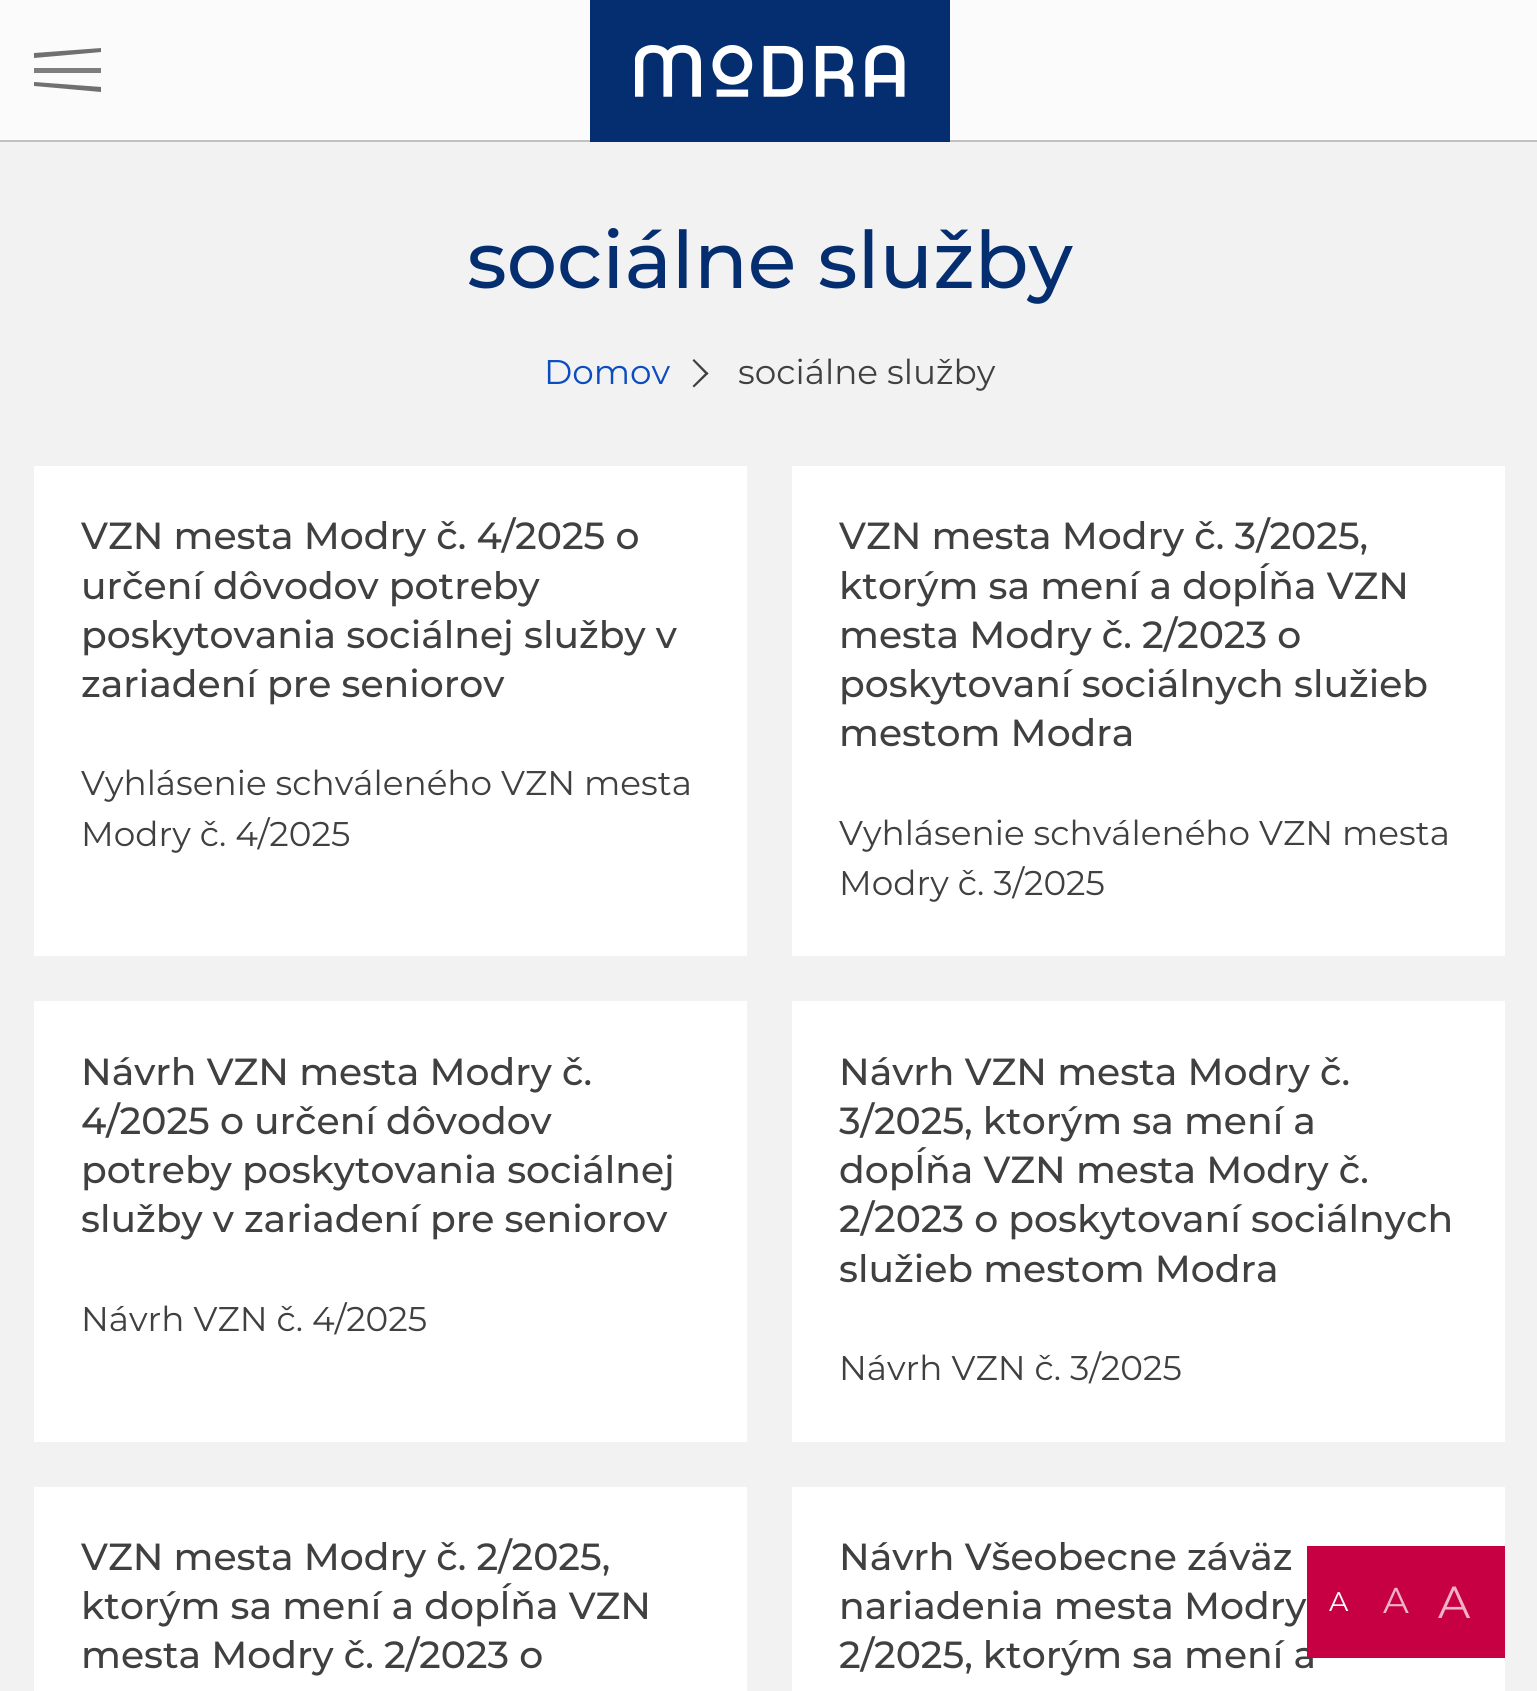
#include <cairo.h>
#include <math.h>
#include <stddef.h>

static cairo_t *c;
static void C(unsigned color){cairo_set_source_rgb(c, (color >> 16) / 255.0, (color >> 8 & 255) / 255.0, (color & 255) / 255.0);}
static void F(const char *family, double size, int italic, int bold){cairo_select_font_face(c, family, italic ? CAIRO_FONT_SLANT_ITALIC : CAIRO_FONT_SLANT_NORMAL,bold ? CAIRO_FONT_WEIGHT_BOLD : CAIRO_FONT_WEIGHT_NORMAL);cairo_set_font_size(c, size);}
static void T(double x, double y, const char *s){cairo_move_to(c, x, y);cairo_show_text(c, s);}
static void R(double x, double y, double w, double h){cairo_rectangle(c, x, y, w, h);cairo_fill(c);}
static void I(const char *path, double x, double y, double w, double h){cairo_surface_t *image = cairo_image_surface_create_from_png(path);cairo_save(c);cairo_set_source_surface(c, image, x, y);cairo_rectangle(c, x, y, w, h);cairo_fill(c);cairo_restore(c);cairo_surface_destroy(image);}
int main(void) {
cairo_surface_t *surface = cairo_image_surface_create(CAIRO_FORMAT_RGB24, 1537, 1691);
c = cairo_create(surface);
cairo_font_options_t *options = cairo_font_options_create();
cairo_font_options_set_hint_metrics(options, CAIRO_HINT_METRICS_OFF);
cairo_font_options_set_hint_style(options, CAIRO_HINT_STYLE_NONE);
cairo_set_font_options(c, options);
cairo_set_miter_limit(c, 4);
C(0xf2f2f2);
cairo_paint(c);
C(0xfbfbfb);
R(0,0,1537,140);
C(0xc1c1c1);
R(0,140,1537,2);
C(0x707070);
cairo_new_path(c);
cairo_move_to(c,34,53);
cairo_line_to(c,101,48);
cairo_line_to(c,101,52);
cairo_line_to(c,34,58);
cairo_close_path(c);
cairo_fill(c);
C(0x7e7e7e);
R(34,68,67,5);
C(0x707070);
cairo_new_path(c);
cairo_move_to(c,34,82);
cairo_line_to(c,101,87);
cairo_line_to(c,101,92);
cairo_line_to(c,34,86);
cairo_close_path(c);
cairo_fill(c);
C(0x042e6f);
R(590,0,360,142);
I("1.png",635,45,270,52);
F("Montserrat Medium",79.25,0,0);
T(467,288,"sociálne služby");
F("Montserrat",34.25,0,0);
C(0x0a4dc1);
T(544,384,"Domov");
C(0x404040);
cairo_new_path(c);
cairo_move_to(c,694,359);
cairo_line_to(c,708.5,373.5);
cairo_line_to(c,706.5,375);
cairo_line_to(c,692.5,360.5);
cairo_close_path(c);
cairo_fill(c);
cairo_new_path(c);
cairo_move_to(c,706.5,372);
cairo_line_to(c,708.5,373.5);
cairo_line_to(c,694,387.5);
cairo_line_to(c,692.5,386);
cairo_close_path(c);
cairo_fill(c);
T(738,384,"sociálne služby");
C(0xffffff);
R(34,466,713,490);
F("Montserrat Medium",37.75,0,0);
C(0x404040);
T(81,549,"VZN mesta Modry č. 4/2025 o");
T(81,599,"určení dôvodov potreby");
T(81,648,"poskytovania sociálnej služby v");
T(81,697,"zariadení pre seniorov");
F("Montserrat",34.25,0,0);
T(81,795,"Vyhlásenie schváleného VZN mesta");
T(81,846,"Modry č. 4/2025");
C(0xffffff);
R(792,466,713,490);
F("Montserrat Medium",37.75,0,0);
C(0x404040);
T(839,549,"VZN mesta Modry č. 3/2025,");
T(839,599,"ktorým sa mení a dopĺňa VZN");
T(839,648,"mesta Modry č. 2/2023 o");
T(839,697,"poskytovaní sociálnych služieb");
T(839,746,"mestom Modra");
F("Montserrat",34.25,0,0);
T(839,845,"Vyhlásenie schváleného VZN mesta");
T(839,895,"Modry č. 3/2025");
C(0xffffff);
R(34,1001,713,441);
F("Montserrat Medium",37.75,0,0);
C(0x404040);
T(81,1085,"Návrh VZN mesta Modry č.");
T(81,1134,"4/2025 o určení dôvodov");
T(81,1183,"potreby poskytovania sociálnej");
T(81,1232,"služby v zariadení pre seniorov");
F("Montserrat",34.25,0,0);
T(81,1331,"Návrh VZN č. 4/2025");
C(0xffffff);
R(792,1001,713,441);
F("Montserrat Medium",37.75,0,0);
C(0x404040);
T(839,1085,"Návrh VZN mesta Modry č.");
T(839,1134,"3/2025, ktorým sa mení a");
T(839,1183,"dopĺňa VZN mesta Modry č.");
T(839,1232,"2/2023 o poskytovaní sociálnych");
T(839,1282,"služieb mestom Modra");
F("Montserrat",34.25,0,0);
T(839,1380,"Návrh VZN č. 3/2025");
C(0xffffff);
R(34,1487,713,204);
F("Montserrat Medium",37.75,0,0);
C(0x404040);
T(81,1570,"VZN mesta Modry č. 2/2025,");
T(81,1619,"ktorým sa mení a dopĺňa VZN");
T(81,1668,"mesta Modry č. 2/2023 o");
C(0xffffff);
R(792,1487,713,204);
C(0x404040);
T(839,1570,"Návrh Všeobecne záväz");
T(839,1619,"nariadenia mesta Modry");
T(839,1668,"2/2025, ktorým sa mení a");
C(0xc60043);
R(1307,1546,198,112);
F("Montserrat",27,0,0);
C(0xffffff);
T(1329,1611,"A");
F("Montserrat",36,0,0);
C(0xeeb3c7);
T(1383,1613,"A");
F("Montserrat",45,0,0);
T(1438,1618,"A");
cairo_surface_write_to_png(surface, "o.png");
cairo_font_options_destroy(options);
cairo_destroy(c);
cairo_surface_destroy(surface);
return 0;
}
